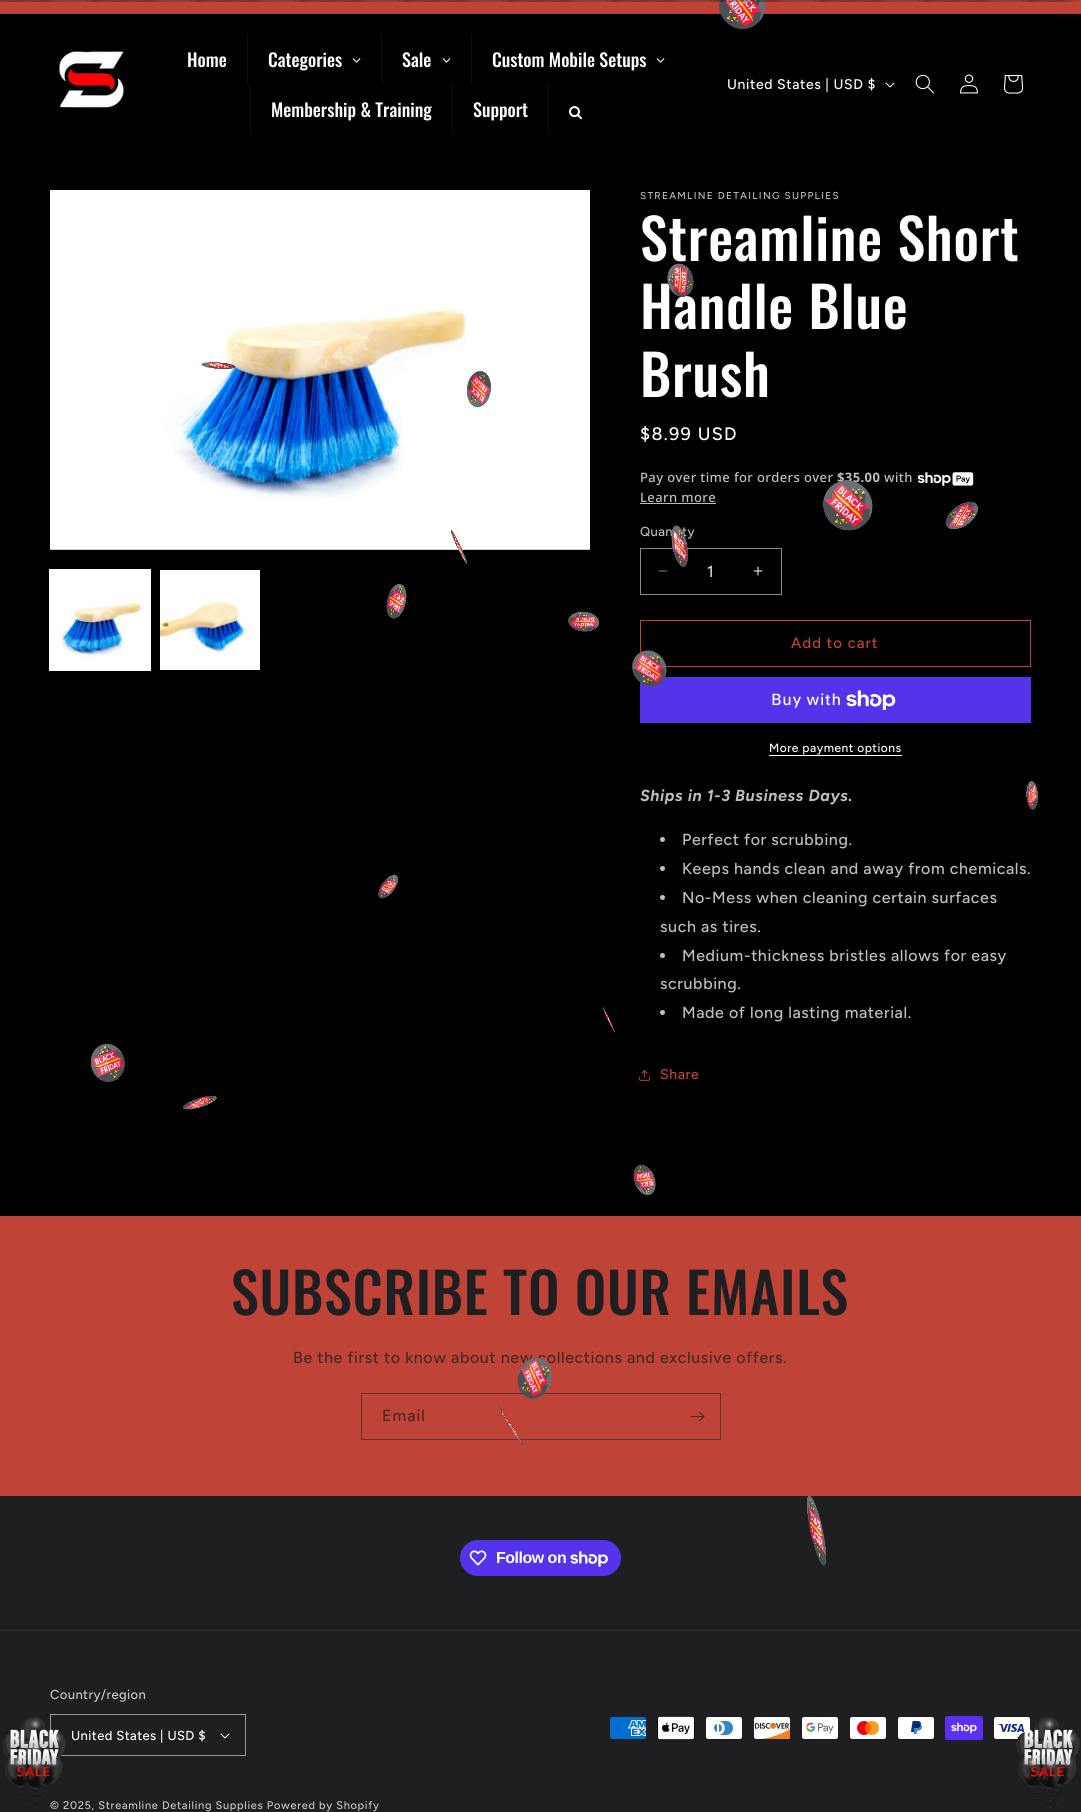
#include <cairo.h>
#include <math.h>
#include <stddef.h>

static cairo_t *c;
static void C(unsigned color){cairo_set_source_rgb(c, (color >> 16) / 255.0, (color >> 8 & 255) / 255.0, (color & 255) / 255.0);}
static void F(const char *family, double size, int italic, int bold){cairo_select_font_face(c, family, italic ? CAIRO_FONT_SLANT_ITALIC : CAIRO_FONT_SLANT_NORMAL,bold ? CAIRO_FONT_WEIGHT_BOLD : CAIRO_FONT_WEIGHT_NORMAL);cairo_set_font_size(c, size);}
static void T(double x, double y, const char *s){cairo_move_to(c, x, y);cairo_show_text(c, s);}
static void L(double x, double y, const char *s, double letter, double word){cairo_move_to(c, x, y);while (*s) {char ch[5] = {0};int n = 0;do ch[n++] = *s++; while ((*s & 0xC0) == 0x80);cairo_show_text(c, ch);cairo_rel_move_to(c, letter + word * (*ch == ' '), 0);}}
static void R(double x, double y, double w, double h){cairo_rectangle(c, x, y, w, h);cairo_fill(c);}
static void Q(double x, double y, double w, double h, double r){cairo_new_sub_path(c);cairo_arc(c, x + w - r, y + h - r, r, 0, M_PI / 2);cairo_arc(c, x + r, y + h - r, r, M_PI / 2, M_PI);cairo_arc(c, x + r, y + r, r, M_PI, 1.5 * M_PI);cairo_arc(c, x + w - r, y + r, r, 1.5 * M_PI, 2 * M_PI);cairo_close_path(c);}
static void S(double x, double y, double w, double h, double r, double blur, double alpha){cairo_push_group_with_content(c, CAIRO_CONTENT_ALPHA);cairo_set_operator(c, CAIRO_OPERATOR_SOURCE);for (int i = 15; i >= -15 && fmin(w, h) + blur * i / 3 > 0; i -= 2) {double e = blur * i / 6;cairo_set_source_rgba(c, 0, 0, 0, alpha * erfc((i - 1) / 8.5) / 2);Q(x - e, y - e, w + 2 * e, h + 2 * e, fmax(0, fmin(r + e + blur * .6, fmin(w, h) / 2 + e)));cairo_fill(c);}cairo_pattern_t *soft = cairo_pop_group(c);cairo_mask(c, soft);cairo_pattern_destroy(soft);}
static void I(const char *path, double x, double y, double w, double h){cairo_surface_t *image = cairo_image_surface_create_from_png(path);cairo_save(c);cairo_set_source_surface(c, image, x, y);cairo_rectangle(c, x, y, w, h);cairo_fill(c);cairo_restore(c);cairo_surface_destroy(image);}
int main(void) {
cairo_surface_t *surface = cairo_image_surface_create(CAIRO_FORMAT_RGB24, 1081, 1812);
c = cairo_create(surface);
cairo_font_options_t *options = cairo_font_options_create();
cairo_font_options_set_hint_metrics(options, CAIRO_HINT_METRICS_OFF);
cairo_font_options_set_hint_style(options, CAIRO_HINT_STYLE_NONE);
cairo_set_font_options(c, options);
cairo_set_miter_limit(c, 4);
C(0x000000);
cairo_paint(c);
C(0xbf4337);
R(0,0,1081,13);
C(0xb24035);
R(0,13,1081,1);
cairo_save(c);
cairo_rectangle(c,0,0,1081,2);
cairo_clip(c);
C(0x101010);
S(-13,-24,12,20,6,12,1);
C(0x181818);
S(13,-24,12,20,6,12,1);
C(0x101010);
S(39,-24,12,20,6,12,1);
C(0x404040);
S(65,-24,12,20,6,12,1);
C(0x101010);
S(91,-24,12,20,6,12,1);
C(0x181818);
S(117,-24,12,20,6,12,1);
C(0x101010);
S(143,-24,12,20,6,12,1);
C(0x404040);
S(169,-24,12,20,6,12,1);
C(0x101010);
S(195,-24,12,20,6,12,1);
C(0x181818);
S(221,-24,12,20,6,12,1);
C(0x101010);
S(247,-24,12,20,6,12,1);
C(0x404040);
S(273,-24,12,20,6,12,1);
C(0x101010);
S(299,-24,12,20,6,12,1);
C(0x181818);
S(325,-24,12,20,6,12,1);
C(0x101010);
S(351,-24,12,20,6,12,1);
C(0x404040);
S(377,-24,12,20,6,12,1);
C(0x101010);
S(403,-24,12,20,6,12,1);
C(0x181818);
S(429,-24,12,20,6,12,1);
C(0x101010);
S(455,-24,12,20,6,12,1);
C(0x404040);
S(481,-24,12,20,6,12,1);
C(0x101010);
S(507,-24,12,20,6,12,1);
C(0x181818);
S(533,-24,12,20,6,12,1);
C(0x101010);
S(559,-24,12,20,6,12,1);
C(0x404040);
S(585,-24,12,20,6,12,1);
C(0x101010);
S(611,-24,12,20,6,12,1);
C(0x181818);
S(637,-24,12,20,6,12,1);
C(0x101010);
S(663,-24,12,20,6,12,1);
cairo_restore(c);
I("1.png",719,0,46,29);
cairo_save(c);
cairo_rectangle(c,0,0,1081,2);
cairo_clip(c);
C(0x404040);
S(689,-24,12,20,6,12,1);
C(0x101010);
S(715,-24,12,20,6,12,1);
C(0x181818);
S(741,-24,12,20,6,12,1);
C(0x101010);
S(767,-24,12,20,6,12,1);
C(0x404040);
S(793,-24,12,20,6,12,1);
C(0x101010);
S(819,-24,12,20,6,12,1);
C(0x181818);
S(845,-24,12,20,6,12,1);
C(0x101010);
S(871,-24,12,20,6,12,1);
C(0x404040);
S(897,-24,12,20,6,12,1);
C(0x101010);
S(923,-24,12,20,6,12,1);
C(0x181818);
S(949,-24,12,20,6,12,1);
C(0x101010);
S(975,-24,12,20,6,12,1);
C(0x404040);
S(1001,-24,12,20,6,12,1);
C(0x101010);
S(1027,-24,12,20,6,12,1);
C(0x181818);
S(1053,-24,12,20,6,12,1);
cairo_restore(c);
F("Oswald Medium",56,0,0);
C(0xffffff);
L(640,329,"Handle Blue",.8,0);
I("2.png",667,263,27,34);
I("28.png",50,190,540,360);
I("3.png",201,362,35,7);
I("4.png",466,370,25,38);
F("Noto Sans Medium",13,0,0);
C(0xbfbfbf);
L(640,482,"Pay over time for orders over",.4,0);
F("Noto Sans",13,0,1);
L(837,482,"$35.00",.4,0);
I("5.png",823,480,50,51);
I("6.png",946,501,32,29);
I("7.png",450,529,18,35);
F("Figtree Medium",13,0,0);
L(640,536,"Quan",.4,0);
L(682,536,"ty",.4,0);
I("32.png",658,570,10,2);
I("33.png",753,566,10,10);
cairo_rectangle(c,640.5,548.5,141,46);
C(0x8c8c8c);
cairo_set_line_width(c,1);
cairo_stroke(c);
I("8.png",671,525,18,42);
I("9.png",386,583,21,36);
I("10.png",568,611,32,21);
cairo_rectangle(c,640.5,620.5,390,46);
C(0xbf4337);
cairo_stroke(c);
C(0x5433eb);
R(640,677,391,46);
I("11.png",632,650,35,37);
I("12.png",1026,781,12,29);
I("13.png",378,874,20,25);
I("14.png",602,1005,13,28);
I("15.png",90,1043,35,39);
I("16.png",182,1095,35,15);
I("17.png",633,1164,23,32);
C(0xbf4337);
R(0,1216,1081,280);
F("Figtree Medium",16,0,0);
C(0x472827);
L(293,1363,"Be the first to know about new collections and exclusive offers.",.6,0);
cairo_rectangle(c,361.5,1393.5,359,46);
C(0x672f2b);
cairo_stroke(c);
I("18.png",517,1357,35,42);
I("19.png",496,1402,29,47);
C(0x1f1f21);
R(0,1496,1081,316);
I("20.png",807,1495,19,71);
I("21.png",59,51,65,57);
F("Oswald Medium",18,0,0);
C(0xffffff);
T(187,67,"Home");
C(0x0f0f0f);
R(247,34,1,50);
C(0xffffff);
T(268,67,"Categories");
I("22.png",352,58,9,5);
C(0x0f0f0f);
R(381,34,1,50);
C(0xffffff);
T(402,67,"Sale");
I("22.png",442,58,9,5);
C(0x0f0f0f);
R(471,34,1,50);
C(0xffffff);
T(492,67,"Custom Mobile Setups");
I("22.png",656,58,9,5);
C(0x0f0f0f);
R(250,84,1,50);
C(0xffffff);
T(271,117,"Membership & Training");
C(0x0f0f0f);
R(452,84,1,50);
C(0xffffff);
T(473,117,"Support");
C(0x0f0f0f);
R(548,84,1,50);
I("23.png",569,106,13,14);
F("Figtree Medium",14,0,0);
C(0xffffff);
L(727,89,"United States | USD $",.6,0);
I("24.png",885,82,10,6);
I("25.png",915,74,19,20);
I("26.png",960,74,18,20);
I("27.png",1004,75,20,19);
cairo_rectangle(c,49.5,569.5,101,101);
cairo_stroke(c);
I("29.png",50,570,100,100);
I("30.png",160,570,100,100);
F("Figtree Medium",10,0,0);
C(0xbfbfbf);
L(640,199,"STREAMLINE DETAILING SUPPLIES",1.3,0);
F("Oswald Medium",56,0,0);
C(0xffffff);
L(640,261,"Streamline Short",.8,0);
L(640,397,"Brush",.8,0);
F("Figtree Medium",18,0,0);
L(640,440,"$8.99 USD",1.3,0);
F("Noto Sans Medium",13,0,0);
C(0xbfbfbf);
L(884,482,"with",.4,0);
I("31.png",917,472,57,14);
L(640,502,"Learn more",.4,0);
R(640,503,76,1);
F("Figtree Medium",16,0,0);
C(0xd9d9d9);
T(707,577,"1");
F("Figtree Medium",15,0,0);
C(0xbf4337);
L(791,648,"Add to cart",1,0);
F("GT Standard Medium",16,0,0);
C(0xffffff);
L(771,705,"Buy with",.6,0);
I("34.png",846,690,50,20);
F("Figtree Medium",12,0,0);
L(769,752,"More payment options",.5,0);
R(769,755,133,1);
F("Figtree",16,1,1);
C(0xbfbfbf);
L(640,801,"Ships in 1-3 Business Days.",.6,0);
cairo_new_path(c);
cairo_arc(c,662.5,839.5,2.5,0,2 * M_PI);
cairo_fill(c);
F("Figtree Medium",16,0,0);
L(682,845,"Perfect for scrubbing.",.6,0);
cairo_new_path(c);
cairo_arc(c,662.5,868.5,2.5,0,2 * M_PI);
cairo_fill(c);
L(682,874,"Keeps hands clean and away from chemicals.",.6,0);
cairo_new_path(c);
cairo_arc(c,662.5,897.5,2.5,0,2 * M_PI);
cairo_fill(c);
L(682,903,"No-Mess when cleaning certain surfaces",.6,0);
L(660,932,"such as tires.",.6,0);
cairo_new_path(c);
cairo_arc(c,662.5,955.5,2.5,0,2 * M_PI);
cairo_fill(c);
L(682,961,"Medium-thickness bristles allows for easy",.6,0);
L(660,989,"scrubbing.",.6,0);
cairo_new_path(c);
cairo_arc(c,662.5,1012.5,2.5,0,2 * M_PI);
cairo_fill(c);
L(682,1018,"Made of long lasting material.",.6,0);
I("35.png",639,1070,11,11);
F("Figtree Medium",14,0,0);
C(0xbf4337);
L(660,1079,"Share",.6,0);
F("Oswald Medium",56,0,0);
C(0x1f1f21);
L(231,1315,"SUBSCRIBE TO OUR EMAILS",.8,0);
F("Figtree Medium",16,0,0);
C(0x472827);
L(382,1421,"Email",1,0);
I("36.png",690,1411,15,11);
I("40.png",220,1733,10,6);
cairo_rectangle(c,50.5,1714.5,195,41);
C(0x9a9a9b);
cairo_stroke(c);
F("Figtree Medium",11,0,0);
C(0xc7c7c8);
L(50,1809,"© 2025, Streamline Detailing Supplies Powered by Shopify",.7,0);
I("37.png",2,1717,64,92);
C(0x5433eb);
Q(460,1540,161,36,18);
cairo_fill(c);
I("38.png",469,1550,18,16);
F("Liberation Sans",16,0,1);
C(0xffffff);
L(496,1563,"Follow on",-.5,0);
I("39.png",570,1551,38,16);
C(0x313133);
R(0,1630,1081,1);
F("Figtree Medium",13,0,0);
C(0xc7c7c8);
L(50,1699,"Country/region",.4,0);
C(0xffffff);
L(71,1740,"United States | USD $",.4,0);
I("41.png",610,1717,36,22);
I("42.png",657,1716,38,24);
I("43.png",706,1717,36,22);
I("44.png",754,1717,36,22);
I("45.png",802,1717,36,22);
I("46.png",850,1717,36,22);
I("47.png",898,1717,36,22);
I("48.png",945,1716,38,24);
I("49.png",994,1717,36,22);
I("50.png",1016,1717,64,92);
cairo_surface_write_to_png(surface, "o.png");
cairo_font_options_destroy(options);
cairo_destroy(c);
cairo_surface_destroy(surface);
return 0;
}
